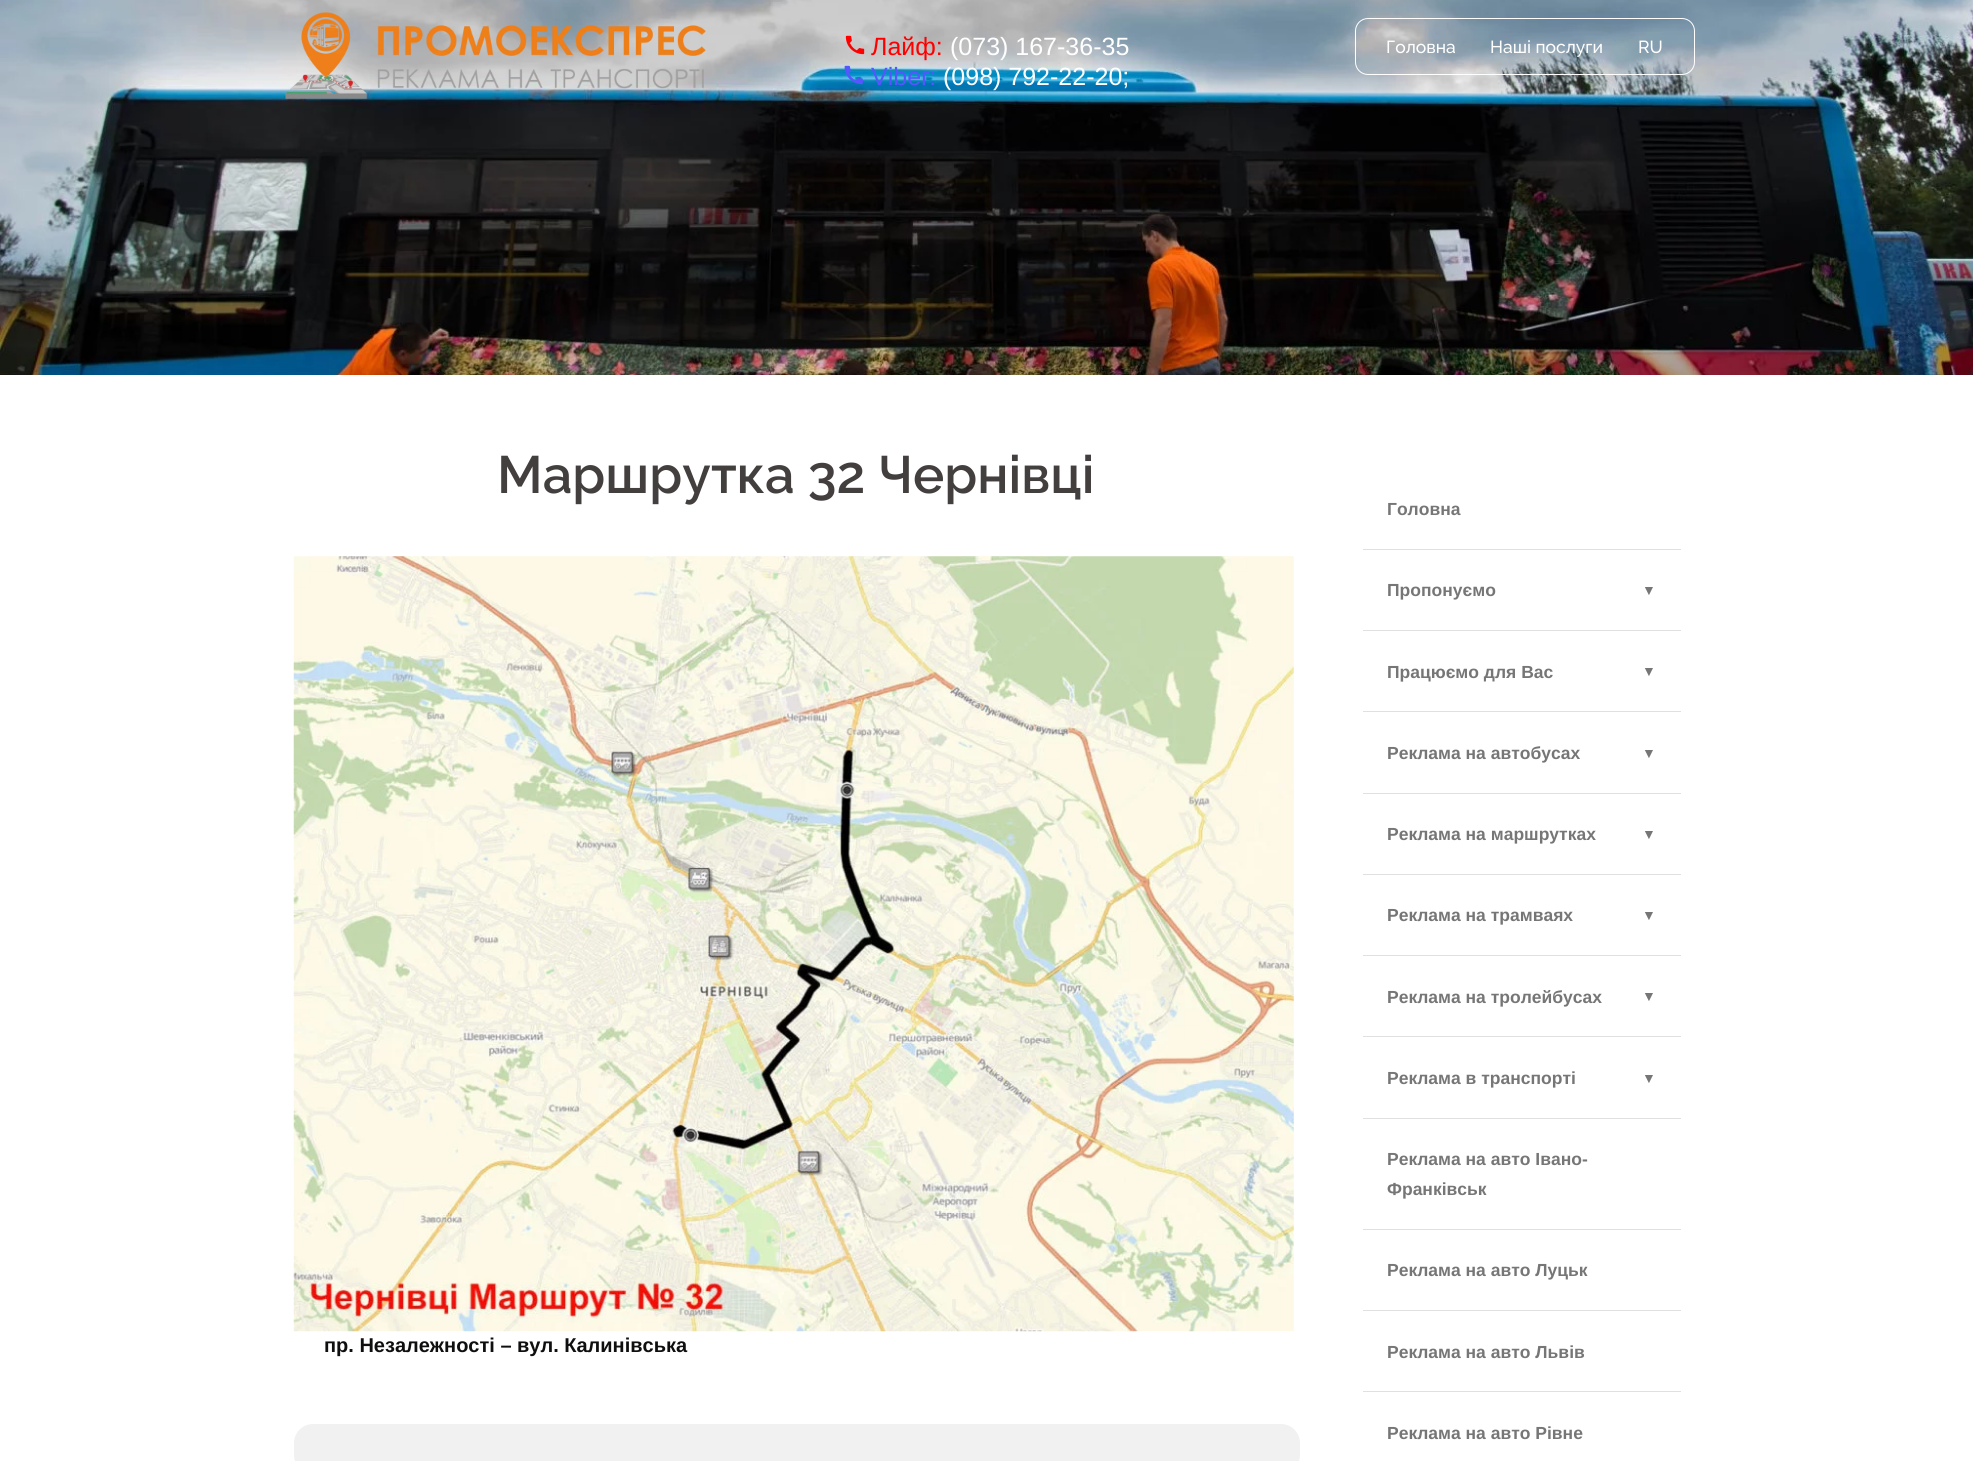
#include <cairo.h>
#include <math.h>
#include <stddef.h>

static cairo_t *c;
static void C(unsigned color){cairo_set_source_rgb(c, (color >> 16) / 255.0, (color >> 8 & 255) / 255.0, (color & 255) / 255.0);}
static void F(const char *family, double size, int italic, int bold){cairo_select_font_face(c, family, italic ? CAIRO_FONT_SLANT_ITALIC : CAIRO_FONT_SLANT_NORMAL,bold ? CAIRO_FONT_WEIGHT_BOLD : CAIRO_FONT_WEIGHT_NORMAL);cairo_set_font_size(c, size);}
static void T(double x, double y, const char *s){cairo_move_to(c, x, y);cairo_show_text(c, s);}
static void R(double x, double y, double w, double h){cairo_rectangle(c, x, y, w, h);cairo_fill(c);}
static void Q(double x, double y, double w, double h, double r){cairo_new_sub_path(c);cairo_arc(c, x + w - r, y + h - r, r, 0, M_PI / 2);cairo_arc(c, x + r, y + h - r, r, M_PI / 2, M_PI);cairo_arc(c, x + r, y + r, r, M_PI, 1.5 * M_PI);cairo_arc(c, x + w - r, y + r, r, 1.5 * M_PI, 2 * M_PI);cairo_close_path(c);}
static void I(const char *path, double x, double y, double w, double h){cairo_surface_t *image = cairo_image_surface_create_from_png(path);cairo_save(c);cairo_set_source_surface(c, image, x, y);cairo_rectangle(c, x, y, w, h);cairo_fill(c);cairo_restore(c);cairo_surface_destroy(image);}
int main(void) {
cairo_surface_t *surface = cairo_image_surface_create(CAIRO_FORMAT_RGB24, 1973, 1461);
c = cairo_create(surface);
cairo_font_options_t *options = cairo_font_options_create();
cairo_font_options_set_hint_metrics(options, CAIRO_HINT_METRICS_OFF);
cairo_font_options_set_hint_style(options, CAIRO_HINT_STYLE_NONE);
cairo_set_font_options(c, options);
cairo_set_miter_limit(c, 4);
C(0xffffff);
cairo_paint(c);
I("1.png",0,0,1973,375);
I("2.png",285,12,421,87);
I("3.png",845,35,20,20);
F("Liberation Sans",25,0,0);
C(0xff0000);
T(871,55,"Лайф:");
C(0xffffff);
T(950,55,"(073) 167-36-35");
I("4.png",844,65,19,20);
C(0x5656ff);
T(871,85,"Viber:");
C(0xffffff);
T(943,85,"(098) 792-22-20;");
Q(1355.5,18.5,339,56,12.5);
cairo_set_line_width(c,1);
cairo_stroke(c);
F("Raleway Medium",17.5,0,0);
T(1386,53,"Головна");
T(1490,53,"Наші послуги");
T(1638,53,"RU");
F("Raleway SemiBold",52.5,0,0);
C(0x443f3f);
T(497,493,"Маршрутка 32 Чернівці");
I("5.png",293,556,1001,776);
F("Liberation Sans",20,0,1);
C(0x0f0f0f);
T(324,1352,"пр. Незалежності – вул. Калинівська");
C(0xf1f1f1);
Q(294,1424,1006,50,19);
cairo_fill(c);
C(0xe0e0e0);
R(1363,549,318,1);
F("Liberation Sans",17.5,0,1);
C(0x767676);
T(1387,515,"Головна");
C(0xe0e0e0);
R(1363,630,318,1);
C(0x767676);
T(1387,596,"Пропонуємо");
F("Liberation Sans",14,0,1);
T(1642,595,"▼");
C(0xe0e0e0);
R(1363,711,318,1);
F("Liberation Sans",17.5,0,1);
C(0x767676);
T(1387,678,"Працюємо для Вас");
F("Liberation Sans",14,0,1);
T(1642,676,"▼");
C(0xe0e0e0);
R(1363,793,318,1);
F("Liberation Sans",17.5,0,1);
C(0x767676);
T(1387,759,"Реклама на автобусах");
F("Liberation Sans",14,0,1);
T(1642,758,"▼");
C(0xe0e0e0);
R(1363,874,318,1);
F("Liberation Sans",17.5,0,1);
C(0x767676);
T(1387,840,"Реклама на маршрутках");
F("Liberation Sans",14,0,1);
T(1642,839,"▼");
C(0xe0e0e0);
R(1363,955,318,1);
F("Liberation Sans",17.5,0,1);
C(0x767676);
T(1387,921,"Реклама на трамваях");
F("Liberation Sans",14,0,1);
T(1642,920,"▼");
C(0xe0e0e0);
R(1363,1036,318,1);
F("Liberation Sans",17.5,0,1);
C(0x767676);
T(1387,1003,"Реклама на тролейбусах");
F("Liberation Sans",14,0,1);
T(1642,1001,"▼");
C(0xe0e0e0);
R(1363,1118,318,1);
F("Liberation Sans",17.5,0,1);
C(0x767676);
T(1387,1084,"Реклама в транспорті");
F("Liberation Sans",14,0,1);
T(1642,1083,"▼");
C(0xe0e0e0);
R(1363,1229,318,1);
F("Liberation Sans",17.5,0,1);
C(0x767676);
T(1387,1165,"Реклама на авто Івано-");
T(1387,1195,"Франківськ");
C(0xe0e0e0);
R(1363,1310,318,1);
C(0x767676);
T(1387,1276,"Реклама на авто Луцьк");
C(0xe0e0e0);
R(1363,1391,318,1);
C(0x767676);
T(1387,1358,"Реклама на авто Львів");
T(1387,1439,"Реклама на авто Рівне");
cairo_surface_write_to_png(surface, "o.png");
cairo_font_options_destroy(options);
cairo_destroy(c);
cairo_surface_destroy(surface);
return 0;
}
